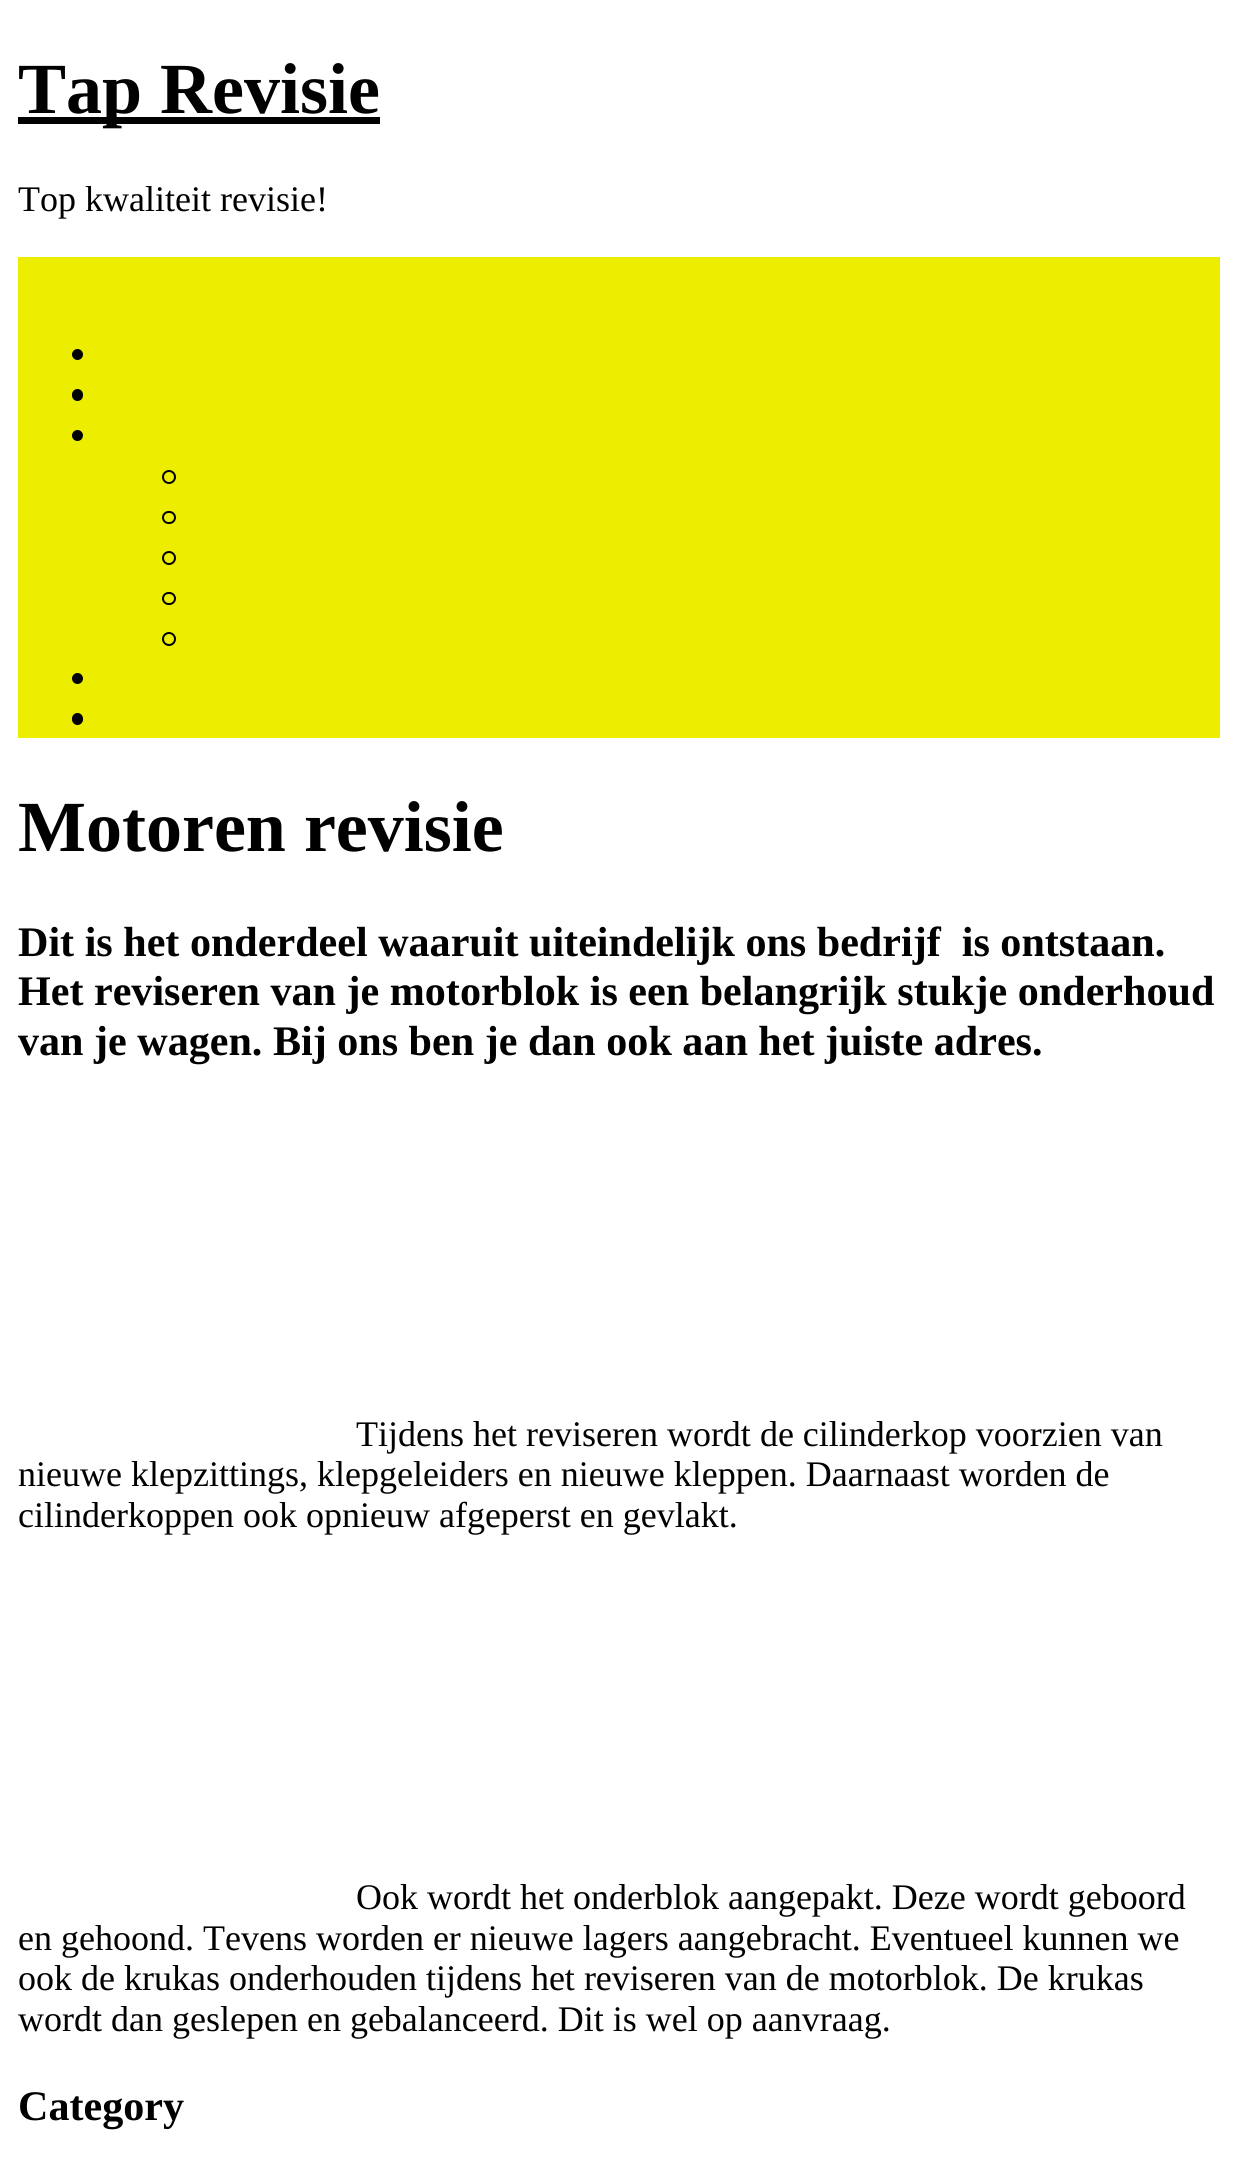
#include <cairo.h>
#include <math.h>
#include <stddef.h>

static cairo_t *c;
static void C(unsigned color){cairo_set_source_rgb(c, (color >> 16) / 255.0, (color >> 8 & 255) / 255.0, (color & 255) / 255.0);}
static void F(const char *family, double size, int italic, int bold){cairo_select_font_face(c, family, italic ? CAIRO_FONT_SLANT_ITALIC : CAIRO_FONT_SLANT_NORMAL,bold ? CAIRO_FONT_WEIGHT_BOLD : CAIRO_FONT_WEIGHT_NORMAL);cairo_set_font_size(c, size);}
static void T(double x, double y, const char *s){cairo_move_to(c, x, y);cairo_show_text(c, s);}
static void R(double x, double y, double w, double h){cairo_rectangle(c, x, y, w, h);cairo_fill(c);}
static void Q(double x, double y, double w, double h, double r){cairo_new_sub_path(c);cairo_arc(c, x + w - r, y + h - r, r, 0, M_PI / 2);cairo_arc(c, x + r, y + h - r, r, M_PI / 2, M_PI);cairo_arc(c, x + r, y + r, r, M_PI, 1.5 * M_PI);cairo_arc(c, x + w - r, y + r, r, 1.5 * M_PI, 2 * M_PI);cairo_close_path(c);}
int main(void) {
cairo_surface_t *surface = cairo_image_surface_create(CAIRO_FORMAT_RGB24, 1237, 2167);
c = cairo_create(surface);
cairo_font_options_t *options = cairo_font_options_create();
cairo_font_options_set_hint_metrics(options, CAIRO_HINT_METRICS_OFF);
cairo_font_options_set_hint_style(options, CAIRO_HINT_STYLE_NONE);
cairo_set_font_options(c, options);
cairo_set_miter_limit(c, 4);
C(0xffffff);
cairo_paint(c);
C(0x000000);
R(18,117,362,7);
F("Liberation Serif",72,0,1);
T(18,113,"Tap Revisie");
F("Liberation Serif",36,0,0);
T(18,211,"Top kwaliteit revisie!");
C(0xeded00);
R(18,257,1202,481);
C(0x000000);
cairo_new_path(c);
cairo_arc(c,77.5,354.5,5.5,0,2 * M_PI);
cairo_fill(c);
Q(72,389,11,12,5.5);
cairo_fill(c);
cairo_arc(c,77.5,435.5,5.5,0,2 * M_PI);
cairo_fill(c);
cairo_arc(c,169,477,6,0,2 * M_PI);
cairo_stroke(c);
Q(163,512,12,11,5.5);
cairo_stroke(c);
cairo_arc(c,169,558,6,0,2 * M_PI);
cairo_stroke(c);
Q(163,593,12,11,5.5);
cairo_stroke(c);
cairo_arc(c,169,639,6,0,2 * M_PI);
cairo_stroke(c);
cairo_arc(c,77.5,678.5,5.5,0,2 * M_PI);
cairo_fill(c);
Q(72,713,11,12,5.5);
cairo_fill(c);
F("Liberation Serif",72,0,1);
T(18,851,"Motoren revisie");
F("Liberation Serif",42.1,0,1);
T(18,956,"Dit is het onderdeel waaruit uiteindelijk ons bedrijf  is ontstaan.");
T(18,1005,"Het reviseren van je motorblok is een belangrijk stukje onderhoud");
T(18,1055,"van je wagen. Bij ons ben je dan ook aan het juiste adres.");
F("Liberation Serif",36,0,0);
T(356,1446,"Tijdens het reviseren wordt de cilinderkop voorzien van");
T(18,1486,"nieuwe klepzittings, klepgeleiders en nieuwe kleppen. Daarnaast worden de");
T(18,1527,"cilinderkoppen ook opnieuw afgeperst en gevlakt.");
T(356,1909,"Ook wordt het onderblok aangepakt. Deze wordt geboord");
T(18,1950,"en gehoond. Tevens worden er nieuwe lagers aangebracht. Eventueel kunnen we");
T(18,1990,"ook de krukas onderhouden tijdens het reviseren van de motorblok. De krukas");
T(18,2031,"wordt dan geslepen en gebalanceerd. Dit is wel op aanvraag.");
F("Liberation Serif",42.1,0,1);
T(18,2120,"Category");
cairo_surface_write_to_png(surface, "o.png");
cairo_font_options_destroy(options);
cairo_destroy(c);
cairo_surface_destroy(surface);
return 0;
}
